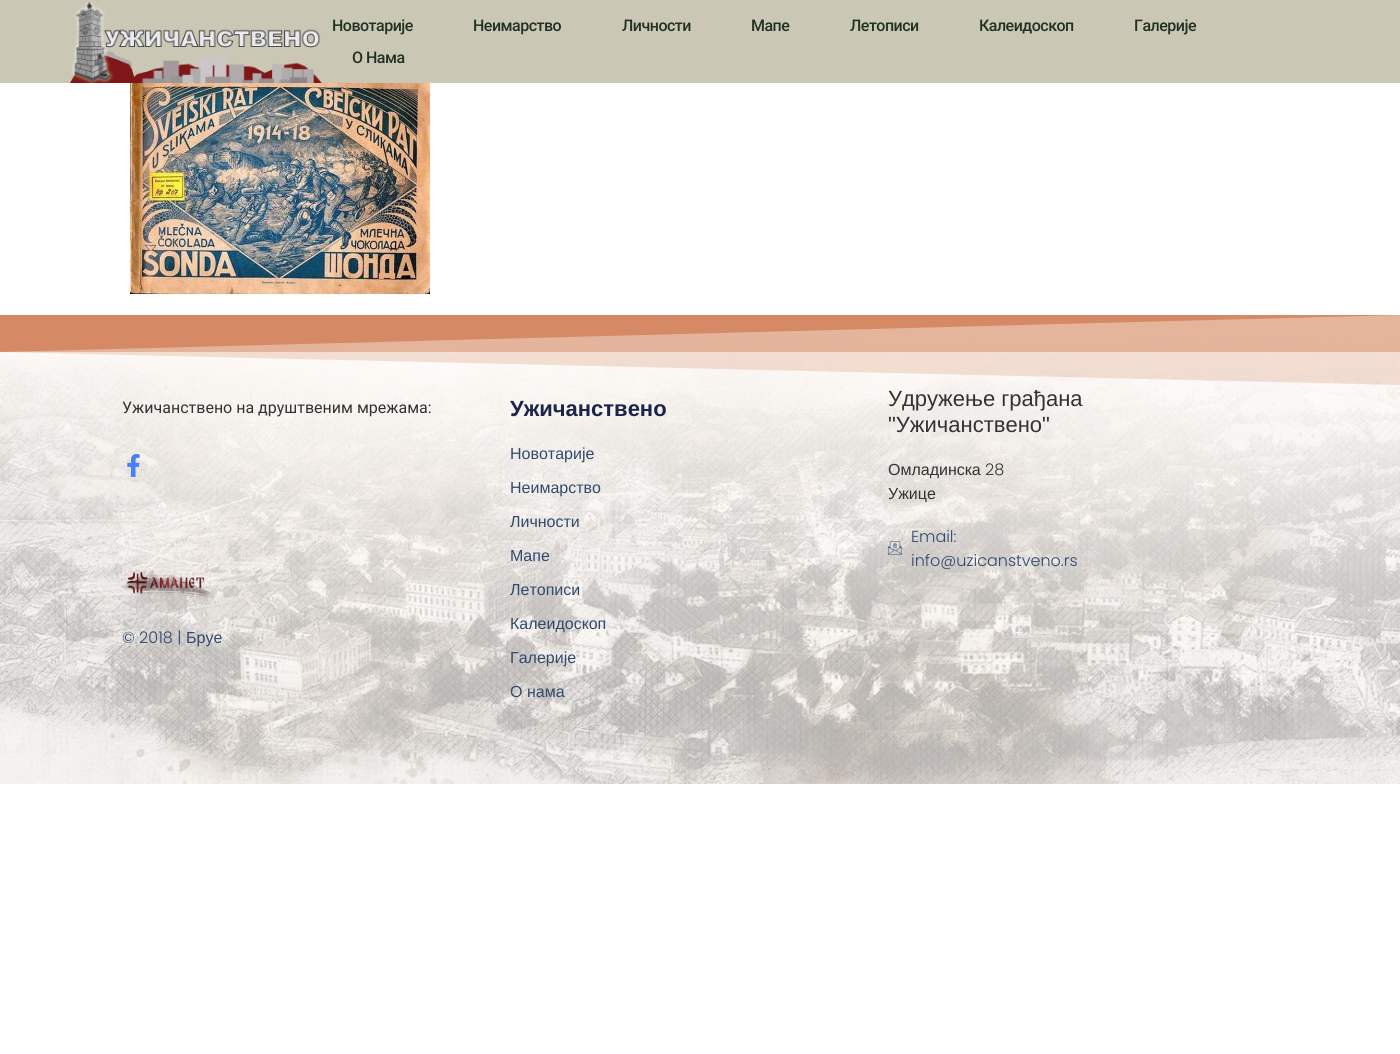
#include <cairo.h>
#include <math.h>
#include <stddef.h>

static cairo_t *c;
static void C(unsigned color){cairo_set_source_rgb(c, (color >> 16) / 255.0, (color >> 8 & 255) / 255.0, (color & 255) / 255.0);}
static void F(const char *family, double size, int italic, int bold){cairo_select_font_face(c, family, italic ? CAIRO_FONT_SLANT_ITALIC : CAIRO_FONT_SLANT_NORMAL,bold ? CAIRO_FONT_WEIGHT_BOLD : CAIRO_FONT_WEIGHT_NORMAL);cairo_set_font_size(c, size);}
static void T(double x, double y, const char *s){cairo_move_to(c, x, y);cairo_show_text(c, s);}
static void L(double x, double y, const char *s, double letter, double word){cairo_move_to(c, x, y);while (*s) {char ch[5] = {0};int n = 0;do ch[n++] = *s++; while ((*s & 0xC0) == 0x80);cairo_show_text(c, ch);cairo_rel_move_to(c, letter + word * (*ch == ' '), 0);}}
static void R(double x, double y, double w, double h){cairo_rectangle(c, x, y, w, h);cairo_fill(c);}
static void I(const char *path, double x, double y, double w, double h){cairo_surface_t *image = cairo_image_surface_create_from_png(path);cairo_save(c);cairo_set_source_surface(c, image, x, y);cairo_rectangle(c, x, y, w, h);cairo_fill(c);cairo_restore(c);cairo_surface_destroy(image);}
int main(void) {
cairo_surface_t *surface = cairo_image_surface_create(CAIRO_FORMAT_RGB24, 1400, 1054);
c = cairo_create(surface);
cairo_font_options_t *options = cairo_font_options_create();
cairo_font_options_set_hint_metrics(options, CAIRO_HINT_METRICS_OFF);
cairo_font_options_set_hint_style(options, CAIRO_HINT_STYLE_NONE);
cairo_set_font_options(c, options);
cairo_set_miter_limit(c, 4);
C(0xffffff);
cairo_paint(c);
C(0xfffcf9);
R(645,316,755,19);
C(0xcac7b4);
R(0,0,1400,83);
I("1.png",70,0,252,83);
F("Roboto Medium",16,0,0);
C(0x223124);
L(332,31,"Новотарије",-.5,0);
L(473,31,"Неимарство",-.5,0);
L(622,31,"Личности",-.5,0);
L(751,31,"Мапе",-.5,0);
L(850,31,"Летописи",-.5,0);
L(979,31,"Калеидоскоп",-.5,0);
L(1134,31,"Галерије",-.5,0);
L(352,63,"О Нама",-.5,0);
I("2.png",130,83,300,211);
I("3.png",0,335,1400,449);
C(0xd68b65);
cairo_new_path(c);
cairo_move_to(c,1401,315);
cairo_line_to(c,-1,315);
cairo_line_to(c,-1,352);
cairo_close_path(c);
cairo_fill(c);
cairo_set_source_rgba(c,0.839,0.545,0.396,0.5);
R(0,315,1400,37);
cairo_set_source_rgba(c,0.839,0.545,0.396,0.25);
cairo_new_path(c);
cairo_move_to(c,-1,315);
cairo_line_to(c,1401,315);
cairo_line_to(c,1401,385);
cairo_line_to(c,-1,352);
cairo_close_path(c);
cairo_fill(c);
F("Roboto",16,0,0);
C(0x333333);
T(122,413,"Ужичанствено на друштвеним мрежама:");
I("4.png",127,454,13,23);
I("5.png",122,570,92,28);
F("Poppins Light",16,0,0);
C(0x324a6d);
T(122,643,"© 2018 |");
F("Liberation Sans",16,0,0);
T(186,643,"Бруе");
F("Liberation Sans",22,0,1);
C(0x1c244b);
T(510,416,"Ужичанствено");
F("Liberation Sans",16,0,0);
C(0x324a6d);
T(510,459,"Новотарије");
T(510,493,"Неимарство");
T(510,527,"Личности");
T(510,561,"Мапе");
T(510,595,"Летописи");
T(510,629,"Калеидоскоп");
T(510,663,"Галерије");
T(510,697,"О нама");
F("Liberation Sans",22,0,0);
C(0x333333);
T(888,406,"Удружење грађана");
T(888,432,"\"Ужичанствено\"");
F("Liberation Sans",16,0,0);
T(888,475,"Омладинска");
F("Poppins Light",16,0,0);
T(985,475,"28");
F("Liberation Sans",16,0,0);
T(888,499,"Ужице");
I("6.png",888,541,14,14);
F("Poppins Light",16,0,0);
C(0x324a6d);
T(911,542,"Email:");
T(911,566,"info@uzicanstveno.rs");
cairo_surface_write_to_png(surface, "o.png");
cairo_font_options_destroy(options);
cairo_destroy(c);
cairo_surface_destroy(surface);
return 0;
}
